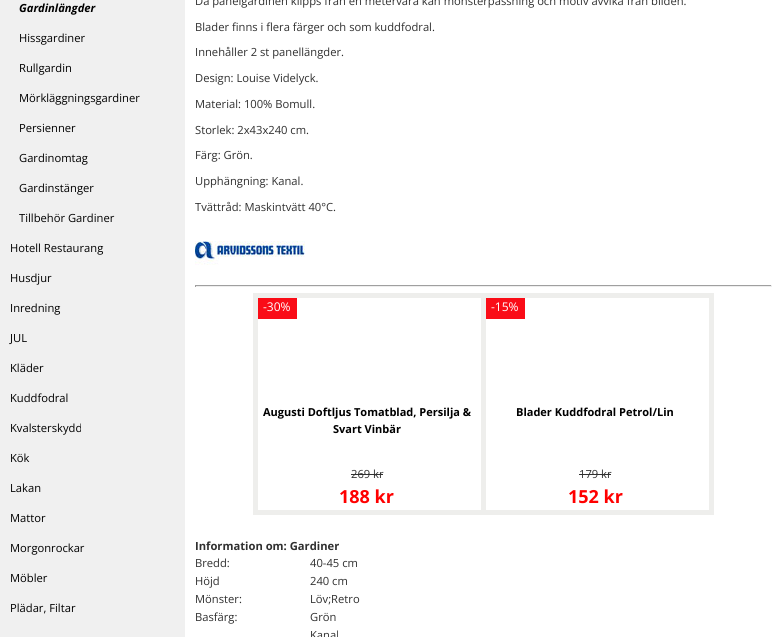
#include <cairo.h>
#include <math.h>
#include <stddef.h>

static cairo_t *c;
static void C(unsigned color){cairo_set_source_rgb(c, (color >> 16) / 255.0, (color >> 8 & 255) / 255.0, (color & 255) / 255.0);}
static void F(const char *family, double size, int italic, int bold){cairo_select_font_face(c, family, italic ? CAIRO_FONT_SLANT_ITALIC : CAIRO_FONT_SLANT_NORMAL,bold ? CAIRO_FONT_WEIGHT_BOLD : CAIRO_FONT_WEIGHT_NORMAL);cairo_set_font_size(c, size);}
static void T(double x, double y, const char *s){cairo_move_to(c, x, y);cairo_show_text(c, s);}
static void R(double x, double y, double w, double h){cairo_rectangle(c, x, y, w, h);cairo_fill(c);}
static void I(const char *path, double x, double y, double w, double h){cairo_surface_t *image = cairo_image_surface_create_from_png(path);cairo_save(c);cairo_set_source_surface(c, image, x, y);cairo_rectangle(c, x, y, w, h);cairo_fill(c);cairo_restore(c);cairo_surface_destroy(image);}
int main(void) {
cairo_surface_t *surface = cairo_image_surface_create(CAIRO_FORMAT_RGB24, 782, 637);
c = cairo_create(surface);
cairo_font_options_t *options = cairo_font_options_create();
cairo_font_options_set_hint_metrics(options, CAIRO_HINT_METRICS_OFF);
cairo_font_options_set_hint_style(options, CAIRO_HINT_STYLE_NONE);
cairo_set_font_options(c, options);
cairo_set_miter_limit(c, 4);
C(0xffffff);
cairo_paint(c);
C(0xf0f0f0);
R(0,0,185,637);
F("Open Sans",11.2,1,1);
C(0x000000);
T(19,12,"Gardinlängder");
F("Open Sans",11.2,0,0);
T(19,42,"Hissgardiner");
T(19,72,"Rullgardin");
T(19,102,"Mörkläggningsgardiner");
T(19,132,"Persienner");
T(19,162,"Gardinomtag");
T(19,192,"Gardinstänger");
T(19,222,"Tillbehör Gardiner");
T(10,252,"Hotell Restaurang");
T(10,282,"Husdjur");
T(10,312,"Inredning");
T(10,342,"JUL");
T(10,372,"Kläder");
T(10,402,"Kuddfodral");
T(10,432,"Kvalsterskydd");
T(10,462,"Kök");
T(10,492,"Lakan");
T(10,522,"Mattor");
T(10,552,"Morgonrockar");
T(10,582,"Möbler");
T(10,612,"Plädar, Filtar");
C(0x303030);
T(195,5,"Då panelgardinen klipps från en metervara kan mönsterpassning och motiv avvika från bilden.");
T(195,31,"Blader finns i flera färger och som kuddfodral.");
T(195,56,"Innehåller 2 st panellängder.");
T(195,82,"Design: Louise Videlyck.");
T(195,108,"Material: 100% Bomull.");
T(195,134,"Storlek: 2x43x240 cm.");
T(195,159,"Färg: Grön.");
T(195,185,"Upphängning: Kanal.");
T(195,211,"Tvättråd: Maskintvätt 40°C.");
I("1.png",195,241,110,24);
C(0x9f9f9f);
R(195,285,577,1);
C(0xeeeeee);
R(771,285,1,2);
R(195,286,577,1);
C(0x9f9f9f);
R(195,285,1,2);
C(0xeeeeec);
R(481,293,233,5);
R(709,293,5,222);
R(481,510,233,5);
R(481,293,5,222);
R(253,293,233,5);
R(253,510,233,5);
R(253,293,5,222);
C(0xfa0c17);
R(258,298,39,21);
F("Open Sans",12,0,0);
C(0xffffff);
T(263,311,"-30%");
F("Open Sans",11,0,1);
C(0x000000);
T(263,416,"Augusti Doftljus Tomatblad, Persilja &");
T(333,433,"Svart Vinbär");
F("Open Sans",11.2,0,0);
C(0x303030);
T(351,478,"269 kr");
R(351,474,32,1);
F("Open Sans",18,0,1);
C(0xff0000);
T(339,503,"188 kr");
C(0xfa0c17);
R(486,298,39,21);
F("Open Sans",12,0,0);
C(0xffffff);
T(491,311,"-15%");
F("Open Sans",11,0,1);
C(0x000000);
T(516,416,"Blader Kuddfodral Petrol/Lin");
F("Open Sans",11.2,0,0);
C(0x303030);
T(579,478,"179 kr");
R(579,474,32,1);
F("Open Sans",18,0,1);
C(0xff0000);
T(568,503,"152 kr");
F("Open Sans",11.2,0,1);
C(0x303030);
T(195,550,"Information om: Gardiner");
F("Open Sans",11.2,0,0);
T(195,567,"Bredd:");
T(310,567,"40-45 cm");
T(195,585,"Höjd");
T(310,585,"240 cm");
T(195,603,"Mönster:");
T(310,603,"Löv;Retro");
T(195,621,"Basfärg:");
T(310,621,"Grön");
T(310,639,"Kanal");
cairo_surface_write_to_png(surface, "o.png");
cairo_font_options_destroy(options);
cairo_destroy(c);
cairo_surface_destroy(surface);
return 0;
}
